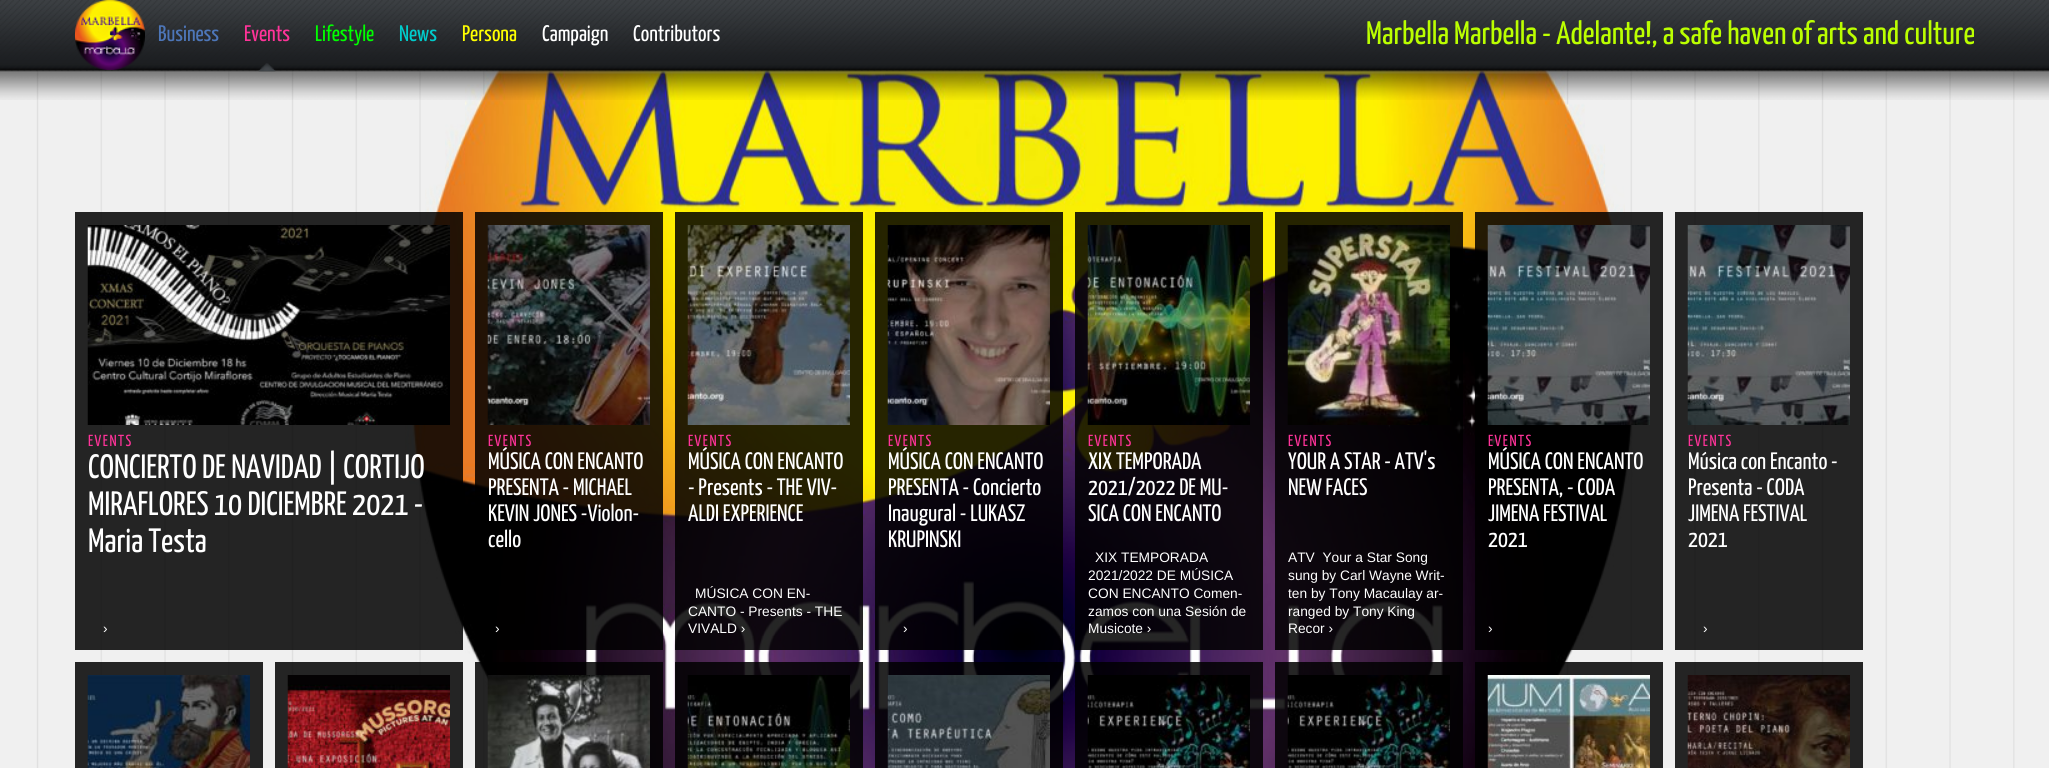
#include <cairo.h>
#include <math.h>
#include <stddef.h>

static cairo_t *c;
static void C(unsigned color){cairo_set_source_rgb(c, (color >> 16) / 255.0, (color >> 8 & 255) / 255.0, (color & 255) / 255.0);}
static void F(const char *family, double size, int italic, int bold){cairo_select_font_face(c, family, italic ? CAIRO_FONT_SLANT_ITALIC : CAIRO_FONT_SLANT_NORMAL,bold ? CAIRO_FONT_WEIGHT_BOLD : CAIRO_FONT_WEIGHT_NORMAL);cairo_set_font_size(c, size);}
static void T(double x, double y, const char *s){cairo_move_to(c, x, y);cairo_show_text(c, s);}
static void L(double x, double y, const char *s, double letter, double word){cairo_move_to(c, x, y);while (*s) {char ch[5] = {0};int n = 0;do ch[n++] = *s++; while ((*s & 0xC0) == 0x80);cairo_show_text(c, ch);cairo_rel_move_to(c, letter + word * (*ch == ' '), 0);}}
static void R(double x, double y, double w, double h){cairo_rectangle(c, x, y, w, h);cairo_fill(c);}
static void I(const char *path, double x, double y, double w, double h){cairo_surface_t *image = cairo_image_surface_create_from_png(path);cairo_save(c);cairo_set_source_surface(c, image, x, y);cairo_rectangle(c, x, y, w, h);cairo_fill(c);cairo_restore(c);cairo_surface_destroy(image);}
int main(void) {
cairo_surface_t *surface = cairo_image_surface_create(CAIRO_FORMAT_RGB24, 2049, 768);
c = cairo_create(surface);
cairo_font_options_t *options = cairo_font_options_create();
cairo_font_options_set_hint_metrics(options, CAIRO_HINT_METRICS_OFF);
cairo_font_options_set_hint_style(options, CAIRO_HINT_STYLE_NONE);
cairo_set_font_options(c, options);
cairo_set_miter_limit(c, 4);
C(0xffffff);
cairo_paint(c);
I("1.png",0,69,2049,699);
I("22.png",405,69,1228,699);
I("2.png",0,0,2049,100);
I("3.png",75,0,70,70);
F("Yanone Kaffeesatz ExtraLight",22.5,0,0);
C(0x4d76b8);
T(158,41,"Business");
I("4.png",258,63,18,9);
C(0xff3399);
T(244,41,"Events");
C(0x00ff00);
T(315,41,"Lifestyle");
C(0x00cccc);
T(399,41,"News");
C(0xffff00);
T(462,41,"Persona");
C(0xffffff);
T(542,41,"Campaign");
T(633,41,"Contributors");
F("Yanone Kaffeesatz ExtraLight",32.5,0,0);
C(0xbbff00);
T(1366,44,"Marbella Marbella - Adelante!, a safe haven of arts and culture");
cairo_set_source_rgba(c,0,0,0,0.85);
R(75,212,388,438);
I("5.png",87,225,363,200);
F("Yanone Kaffeesatz ExtraLight",16,0,0);
C(0xff3399);
L(88,446,"EVENTS",1.5,0);
F("Yanone Kaffeesatz ExtraLight",33.75,0,0);
C(0xffffff);
T(88,478,"CONCIERTO DE NAVIDAD | CORTIJO");
T(88,515,"MIRAFLORES 10 DICIEMBRE 2021 -");
T(88,552,"Maria Testa");
F("Liberation Sans",13.75,0,0);
T(103,633,"›");
cairo_set_source_rgba(c,0,0,0,0.85);
R(475,212,188,438);
I("6.png",487,225,163,200);
F("Yanone Kaffeesatz ExtraLight",16,0,0);
C(0xff3399);
L(488,446,"EVENTS",1.5,0);
F("Yanone Kaffeesatz ExtraLight",23.75,0,0);
C(0xffffff);
T(488,469,"MÚSICA CON ENCANTO");
T(488,495,"PRESENTA - MICHAEL");
T(488,521,"KEVIN JONES -Violon-");
T(488,547,"cello");
F("Liberation Sans",13.75,0,0);
T(495,633,"›");
cairo_set_source_rgba(c,0,0,0,0.85);
R(675,212,188,438);
I("7.png",687,225,163,200);
F("Yanone Kaffeesatz ExtraLight",16,0,0);
C(0xff3399);
L(688,446,"EVENTS",1.5,0);
F("Yanone Kaffeesatz ExtraLight",23.75,0,0);
C(0xffffff);
T(688,469,"MÚSICA CON ENCANTO");
T(688,495,"- Presents - THE VIV-");
T(688,521,"ALDI EXPERIENCE");
F("Liberation Sans",13.75,0,0);
T(695,598,"MÚSICA CON EN-");
T(688,616,"CANTO - Presents - THE");
T(688,633,"VIVALD ›");
cairo_set_source_rgba(c,0,0,0,0.85);
R(875,212,188,438);
I("8.png",887,225,163,200);
F("Yanone Kaffeesatz ExtraLight",16,0,0);
C(0xff3399);
L(888,446,"EVENTS",1.5,0);
F("Yanone Kaffeesatz ExtraLight",23.75,0,0);
C(0xffffff);
T(888,469,"MÚSICA CON ENCANTO");
T(888,495,"PRESENTA - Concierto");
T(888,521,"Inaugural - LUKASZ");
T(888,547,"KRUPINSKI");
F("Liberation Sans",13.75,0,0);
T(903,633,"›");
cairo_set_source_rgba(c,0,0,0,0.85);
R(1075,212,188,438);
I("9.png",1087,225,163,200);
F("Yanone Kaffeesatz ExtraLight",16,0,0);
C(0xff3399);
L(1088,446,"EVENTS",1.5,0);
F("Yanone Kaffeesatz ExtraLight",23.75,0,0);
C(0xffffff);
T(1088,469,"XIX TEMPORADA");
T(1088,495,"2021/2022 DE MU-");
T(1088,521,"SICA CON ENCANTO");
F("Liberation Sans",13.75,0,0);
T(1095,562,"XIX TEMPORADA");
T(1088,580,"2021/2022 DE MÚSICA");
T(1088,598,"CON ENCANTO Comen-");
T(1088,616,"zamos con una Sesión de");
T(1088,633,"Musicote ›");
cairo_set_source_rgba(c,0,0,0,0.85);
R(1275,212,188,438);
I("10.png",1287,225,163,200);
F("Yanone Kaffeesatz ExtraLight",16,0,0);
C(0xff3399);
L(1288,446,"EVENTS",1.5,0);
F("Yanone Kaffeesatz ExtraLight",23.75,0,0);
C(0xffffff);
T(1288,469,"YOUR A STAR - ATV's");
T(1288,495,"NEW FACES");
F("Liberation Sans",13.75,0,0);
T(1288,562,"ATV  Your a Star Song");
T(1288,580,"sung by Carl Wayne Writ-");
T(1288,598,"ten by Tony Macaulay ar-");
T(1288,616,"ranged by Tony King");
T(1288,633,"Recor ›");
cairo_set_source_rgba(c,0,0,0,0.85);
R(1475,212,188,438);
I("11.png",1487,225,163,200);
F("Yanone Kaffeesatz ExtraLight",16,0,0);
C(0xff3399);
L(1488,446,"EVENTS",1.5,0);
F("Yanone Kaffeesatz ExtraLight",23.75,0,0);
C(0xffffff);
T(1488,469,"MÚSICA CON ENCANTO");
T(1488,495,"PRESENTA, - CODA");
T(1488,521,"JIMENA FESTIVAL");
T(1488,547,"2021");
F("Liberation Sans",13.75,0,0);
T(1488,633,"›");
cairo_set_source_rgba(c,0,0,0,0.85);
R(1675,212,188,438);
I("12.png",1687,225,163,200);
F("Yanone Kaffeesatz ExtraLight",16,0,0);
C(0xff3399);
L(1688,446,"EVENTS",1.5,0);
F("Yanone Kaffeesatz ExtraLight",23.75,0,0);
C(0xffffff);
T(1688,469,"Música con Encanto -");
T(1688,495,"Presenta - CODA");
T(1688,521,"JIMENA FESTIVAL");
T(1688,547,"2021");
F("Liberation Sans",13.75,0,0);
T(1703,633,"›");
cairo_set_source_rgba(c,0,0,0,0.85);
R(75,662,188,106);
I("13.png",87,675,163,93);
R(275,662,188,106);
I("14.png",287,675,163,93);
R(475,662,188,106);
I("15.png",487,675,163,93);
R(675,662,188,106);
I("16.png",687,675,163,93);
R(875,662,188,106);
I("17.png",887,675,163,93);
R(1075,662,188,106);
I("18.png",1087,675,163,93);
R(1275,662,188,106);
I("19.png",1287,675,163,93);
R(1475,662,188,106);
I("20.png",1487,675,163,93);
R(1675,662,188,106);
I("21.png",1687,675,163,93);
cairo_surface_write_to_png(surface, "o.png");
cairo_font_options_destroy(options);
cairo_destroy(c);
cairo_surface_destroy(surface);
return 0;
}
